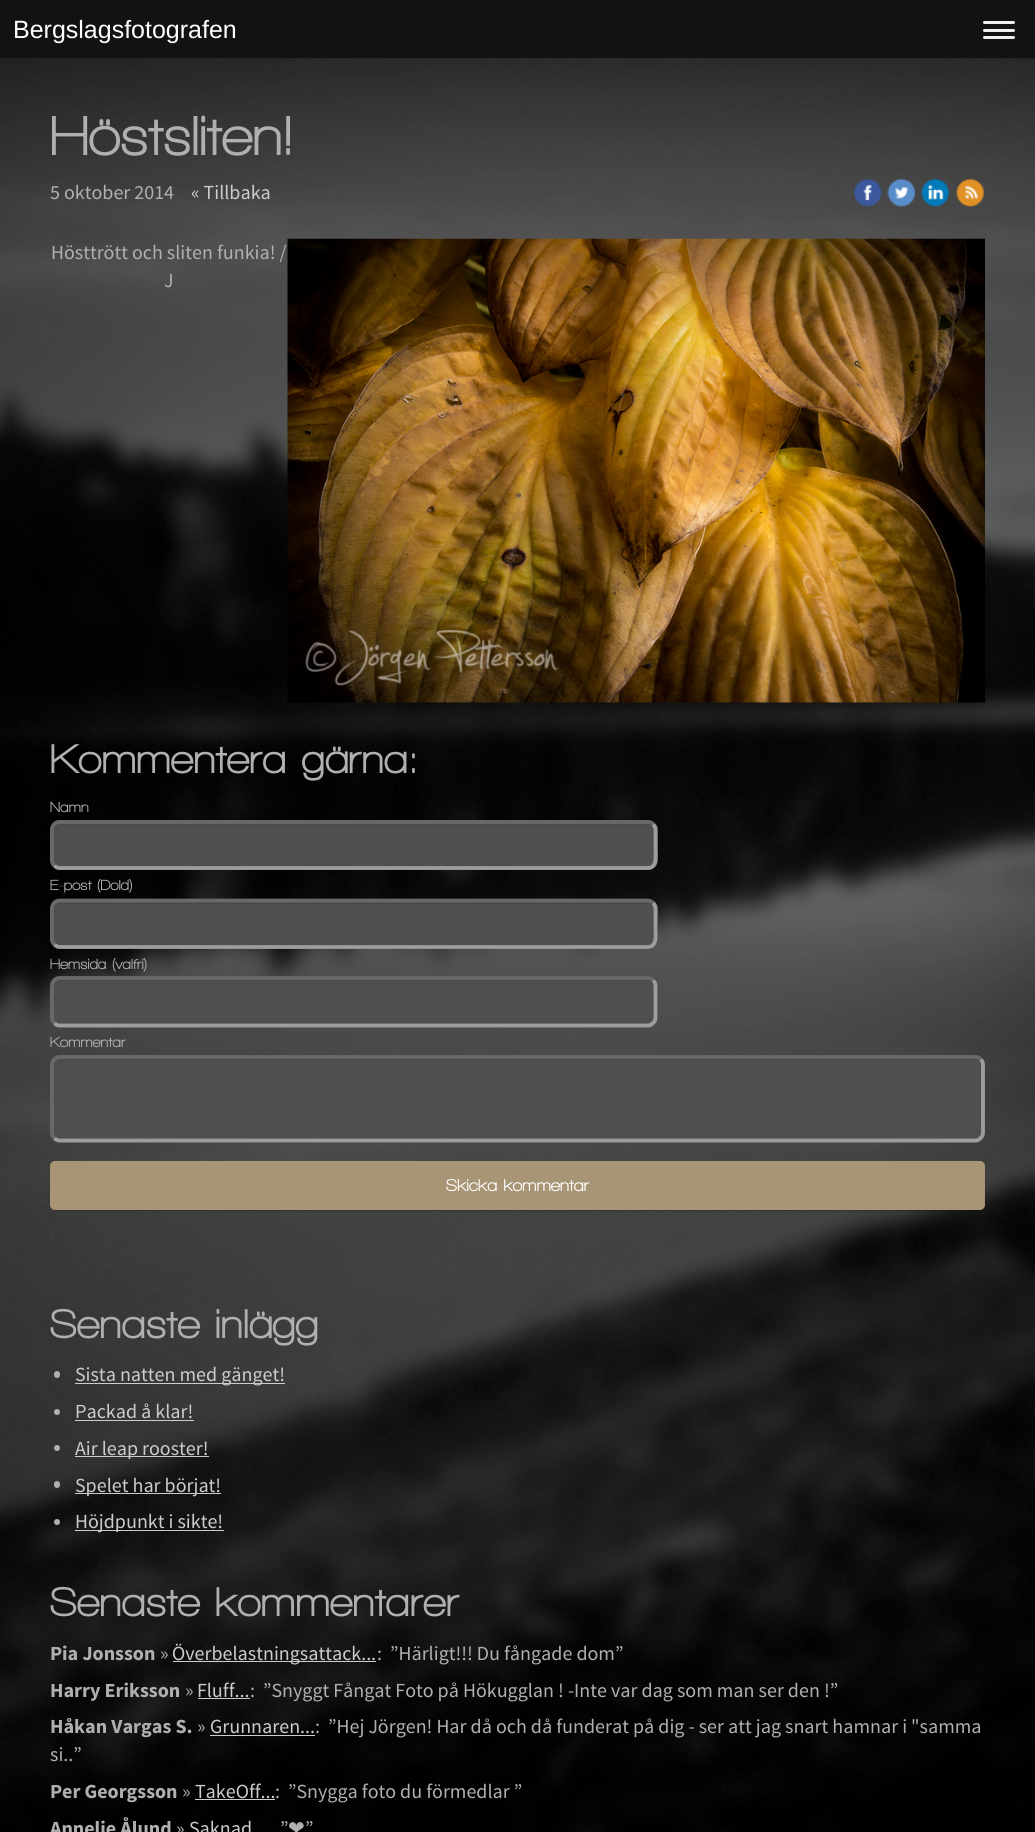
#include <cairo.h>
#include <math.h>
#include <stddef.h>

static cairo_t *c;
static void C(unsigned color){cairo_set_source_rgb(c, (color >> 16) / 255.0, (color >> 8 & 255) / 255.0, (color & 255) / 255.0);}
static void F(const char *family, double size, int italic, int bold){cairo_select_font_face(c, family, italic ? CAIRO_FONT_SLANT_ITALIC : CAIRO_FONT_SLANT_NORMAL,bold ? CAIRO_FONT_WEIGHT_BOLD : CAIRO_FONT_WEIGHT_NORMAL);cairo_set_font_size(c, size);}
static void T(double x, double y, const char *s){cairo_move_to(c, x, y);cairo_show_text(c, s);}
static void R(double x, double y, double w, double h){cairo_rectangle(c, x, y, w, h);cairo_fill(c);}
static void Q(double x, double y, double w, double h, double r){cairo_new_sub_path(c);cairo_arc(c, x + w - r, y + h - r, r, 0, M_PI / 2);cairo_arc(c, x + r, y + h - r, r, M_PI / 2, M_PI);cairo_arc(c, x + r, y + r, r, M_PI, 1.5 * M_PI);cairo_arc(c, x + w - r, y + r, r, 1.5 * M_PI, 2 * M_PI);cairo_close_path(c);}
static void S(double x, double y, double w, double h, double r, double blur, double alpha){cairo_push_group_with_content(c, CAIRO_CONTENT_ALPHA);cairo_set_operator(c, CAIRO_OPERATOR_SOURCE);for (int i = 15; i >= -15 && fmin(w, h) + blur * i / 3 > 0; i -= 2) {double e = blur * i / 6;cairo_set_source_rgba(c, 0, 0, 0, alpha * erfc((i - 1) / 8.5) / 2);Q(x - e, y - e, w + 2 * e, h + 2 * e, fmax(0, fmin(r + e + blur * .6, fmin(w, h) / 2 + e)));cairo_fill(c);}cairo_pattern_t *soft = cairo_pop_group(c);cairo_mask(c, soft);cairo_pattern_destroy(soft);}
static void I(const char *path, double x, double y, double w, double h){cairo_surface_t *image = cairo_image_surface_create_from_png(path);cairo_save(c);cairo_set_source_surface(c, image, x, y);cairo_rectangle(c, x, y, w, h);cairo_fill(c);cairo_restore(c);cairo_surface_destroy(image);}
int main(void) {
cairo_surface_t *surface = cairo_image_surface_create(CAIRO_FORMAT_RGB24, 1035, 1832);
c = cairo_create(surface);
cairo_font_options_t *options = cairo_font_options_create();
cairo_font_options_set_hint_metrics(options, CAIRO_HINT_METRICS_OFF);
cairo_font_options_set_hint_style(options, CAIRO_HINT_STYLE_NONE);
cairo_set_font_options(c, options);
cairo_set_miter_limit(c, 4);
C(0xffffff);
cairo_paint(c);
I("1.png",0,58,1035,1774);
C(0x121212);
R(0,0,1035,58);
F("Liberation Sans",25,0,0);
C(0xffffff);
T(13,38,"Bergslagsfotografen");
C(0xeeeeee);
Q(983,21,32,3,1.5);
cairo_fill(c);
Q(983,29,32,3,1.5);
cairo_fill(c);
Q(983,36,32,3,1.5);
cairo_fill(c);
F("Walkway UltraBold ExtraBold",57.5,0,0);
C(0xb0b0b0);
T(50,155,"Höstsliten!");
F("Source Sans Pro",20,0,0);
T(50,199,"5 oktober 2014");
C(0xcccccc);
T(191,199,"« Tillbaka");
I("2.png",853,178,29,29);
I("3.png",887,178,29,29);
I("4.png",921,178,28,29);
I("5.png",956,178,28,29);
C(0xb0b0b0);
T(51,259,"Hösttrött och sliten funkia! /");
T(164,287,"J");
I("6.png",287,238,698,465);
F("Walkway UltraBold ExtraBold",42.5,0,0);
T(50,773,"Kommentera gärna:");
F("Walkway UltraBold ExtraBold",15,0,0);
T(50,812,"Namn");
C(0x4f4f4f);
Q(50,820,608,50,10);
cairo_fill(c);
C(0x494949);
cairo_new_path(c);
cairo_move_to(c,60,825);
cairo_line_to(c,648,825);
cairo_curve_to(c,651,825,654,828,654,831);
cairo_curve_to(c,654,827,652,824,648,824);
cairo_line_to(c,60,824);
cairo_curve_to(c,56,824,54,827,54,831);
cairo_curve_to(c,54,828,57,825,60,825);
cairo_close_path(c);
cairo_fill(c);
cairo_new_path(c);
cairo_move_to(c,653,824.5);
cairo_curve_to(c,656,827,655.5,831,655.5,835);
cairo_line_to(c,655.5,850);
cairo_curve_to(c,655.5,856.5,657.5,868,647.5,868);
cairo_line_to(c,60,868);
cairo_curve_to(c,58,868,56,867.5,54.5,865.5);
C(0xa09c9c);
cairo_set_line_width(c,3.8);
cairo_stroke(c);
cairo_new_path(c);
cairo_move_to(c,54.5,865.5);
cairo_curve_to(c,51.5,863,52,859,52,855);
cairo_line_to(c,52,840);
cairo_curve_to(c,52,833.5,50,822,60,822);
cairo_line_to(c,647.5,822);
cairo_curve_to(c,649.5,822,651.5,822.5,653,824.5);
C(0x6b6868);
cairo_stroke(c);
C(0xb0b0b0);
T(50,890,"E-post (Dold)");
C(0x4f4f4f);
Q(50,899,608,50,10);
cairo_fill(c);
C(0x494949);
cairo_new_path(c);
cairo_move_to(c,60,904);
cairo_line_to(c,648,904);
cairo_curve_to(c,651,904,654,907,654,910);
cairo_curve_to(c,654,906,652,903,648,903);
cairo_line_to(c,60,903);
cairo_curve_to(c,56,903,54,906,54,910);
cairo_curve_to(c,54,907,57,904,60,904);
cairo_close_path(c);
cairo_fill(c);
cairo_new_path(c);
cairo_move_to(c,653,903);
cairo_curve_to(c,656,906,655.5,910,655.5,914);
cairo_line_to(c,655.5,929);
cairo_curve_to(c,655.5,935,657.5,947,647.5,947);
cairo_line_to(c,60,947);
cairo_curve_to(c,58,947,56,946,54.5,944.5);
C(0xa09c9c);
cairo_stroke(c);
cairo_new_path(c);
cairo_move_to(c,54.5,944.5);
cairo_curve_to(c,51.5,941.5,52,937.5,52,934);
cairo_line_to(c,52,919);
cairo_curve_to(c,52,912.5,50,900.5,60,900.5);
cairo_line_to(c,647.5,900.5);
cairo_curve_to(c,649.5,900.5,651.5,901.5,653,903);
C(0x6b6868);
cairo_stroke(c);
C(0xb0b0b0);
T(50,969,"Hemsida (valfri)");
C(0x4f4f4f);
Q(50,976,608,52,10);
cairo_fill(c);
C(0x494949);
cairo_new_path(c);
cairo_move_to(c,60,981);
cairo_line_to(c,648,981);
cairo_curve_to(c,651,981,654,984,654,988);
cairo_line_to(c,654,986);
cairo_curve_to(c,654,983,651,980,648,980);
cairo_line_to(c,60,980);
cairo_curve_to(c,57,980,54,983,54,986);
cairo_line_to(c,54,988);
cairo_curve_to(c,54,984,57,981,60,981);
cairo_close_path(c);
cairo_fill(c);
cairo_new_path(c);
cairo_move_to(c,653,980.5);
cairo_curve_to(c,655,982,655.5,984,655.5,986);
cairo_line_to(c,655.5,1017.5);
cairo_curve_to(c,655.5,1019.5,655,1021.5,653,1023);
cairo_curve_to(c,651.5,1025,649.5,1025.5,647.5,1025.5);
cairo_line_to(c,60,1025.5);
cairo_curve_to(c,58,1025.5,56,1025,54.5,1023);
C(0xa09c9c);
cairo_stroke(c);
cairo_new_path(c);
cairo_move_to(c,54.5,1023);
cairo_curve_to(c,52.5,1021.5,52,1019.5,52,1017.5);
cairo_line_to(c,52,986);
cairo_curve_to(c,52,984,52.5,982,54.5,980.5);
cairo_curve_to(c,56,979,58,978,60,978);
cairo_line_to(c,647.5,978);
cairo_curve_to(c,649.5,978,651.5,979,653,980.5);
C(0x6b6868);
cairo_stroke(c);
C(0xb0b0b0);
T(50,1047,"Kommentar");
C(0x4f4f4f);
Q(50,1055,935,88,10);
cairo_fill(c);
C(0x494949);
cairo_new_path(c);
cairo_move_to(c,60,1060);
cairo_line_to(c,975,1060);
cairo_curve_to(c,978,1060,981,1063,981,1066);
cairo_line_to(c,981,1065);
cairo_curve_to(c,981,1062,978,1059,975,1059);
cairo_line_to(c,60,1059);
cairo_curve_to(c,57,1059,54,1062,54,1065);
cairo_line_to(c,54,1066);
cairo_curve_to(c,54,1063,57,1060,60,1060);
cairo_close_path(c);
cairo_fill(c);
cairo_new_path(c);
cairo_move_to(c,980.5,1059.5);
cairo_curve_to(c,982.5,1061,983,1063,983,1065);
cairo_line_to(c,983,1132.5);
cairo_curve_to(c,983,1134.5,982.5,1136.5,980.5,1138);
cairo_curve_to(c,979,1140,977,1140.5,975,1140.5);
cairo_line_to(c,60,1140.5);
cairo_curve_to(c,58,1140.5,56,1140,54.5,1138);
C(0xa09c9c);
cairo_stroke(c);
cairo_new_path(c);
cairo_move_to(c,54.5,1138);
cairo_curve_to(c,52.5,1136.5,52,1134.5,52,1132.5);
cairo_line_to(c,52,1065);
cairo_curve_to(c,52,1063,52.5,1061,54.5,1059.5);
cairo_curve_to(c,56,1057.5,58,1057,60,1057);
cairo_line_to(c,975,1057);
cairo_curve_to(c,977,1057,979,1057.5,980.5,1059.5);
C(0x6b6868);
cairo_stroke(c);
C(0x000000);
S(51,1164,933,46,4,1,.6);
C(0xa89575);
Q(50,1161,935,49,5);
cairo_fill(c);
F("Walkway UltraBold ExtraBold",17.5,0,0);
C(0xffffff);
T(446,1191,"Skicka kommentar");
F("Walkway UltraBold ExtraBold",42.5,0,0);
C(0xb0b0b0);
T(50,1338,"Senaste inlägg");
Q(54,1371,6,7,3);
cairo_fill(c);
C(0xcccccc);
R(75,1383,210,1);
F("Source Sans Pro",20,0,0);
T(75,1381,"Sista natten med gänget!");
C(0xb0b0b0);
cairo_new_path(c);
cairo_arc(c,57,1412,3,0,2 * M_PI);
cairo_fill(c);
C(0xcccccc);
T(75,1418,"Packad å klar!");
R(75,1420,119,1);
C(0xb0b0b0);
cairo_new_path(c);
cairo_arc(c,57,1448,3,0,2 * M_PI);
cairo_fill(c);
C(0xcccccc);
R(75,1456,134,1);
T(75,1455,"Air leap rooster!");
C(0xb0b0b0);
Q(54,1481,6,7,3);
cairo_fill(c);
C(0xcccccc);
R(75,1493,146,1);
T(75,1492,"Spelet har börjat!");
C(0xb0b0b0);
cairo_new_path(c);
cairo_arc(c,57,1522,3,0,2 * M_PI);
cairo_fill(c);
C(0xcccccc);
R(75,1530,149,1);
T(75,1528,"Höjdpunkt i sikte!");
F("Walkway UltraBold ExtraBold",42.5,0,0);
C(0xb0b0b0);
T(50,1616,"Senaste kommentarer");
F("Source Sans Pro",20,0,1);
T(50,1660,"Pia Jonsson");
F("Source Sans Pro",20,0,0);
T(160,1660,"»");
C(0xcccccc);
R(173,1661,203,1);
T(172,1660,"Överbelastningsattack...");
C(0xb0b0b0);
T(377,1660,":");
T(390,1660,"”Härligt!!! Du fångade dom”");
F("Source Sans Pro",20,0,1);
T(50,1697,"Harry Eriksson");
F("Source Sans Pro",20,0,0);
T(185,1697,"»");
C(0xcccccc);
T(197,1697,"Fluff...");
R(198,1698,52,1);
C(0xb0b0b0);
T(250,1697,":");
T(263,1697,"”Snyggt Fångat Foto på Hökugglan ! -Inte var dag som man ser den !”");
F("Source Sans Pro",20,0,1);
T(50,1733,"Håkan Vargas S.");
F("Source Sans Pro",20,0,0);
T(197,1733,"»");
C(0xcccccc);
T(210,1733,"Grunnaren...");
R(210,1735,105,1);
C(0xb0b0b0);
T(315,1733,":");
T(328,1733,"”Hej Jörgen! Har då och då funderat på dig - ser att jag snart hamnar i \"samma");
T(50,1761,"si..”");
F("Source Sans Pro",20,0,1);
T(50,1798,"Per Georgsson");
F("Source Sans Pro",20,0,0);
T(182,1798,"»");
C(0xcccccc);
T(195,1798,"TakeOff...");
R(195,1799,80,1);
C(0xb0b0b0);
T(275,1798,":");
T(288,1798,"”Snygga foto du förmedlar ”");
F("Source Sans Pro",20,0,1);
T(50,1835,"Annelie Ålund");
F("Source Sans Pro",20,0,0);
T(176,1835,"»");
C(0xcccccc);
T(189,1835,"Saknad");
C(0xb0b0b0);
T(280,1835,"”");
F("DejaVu Sans",20,0,0);
T(288,1835,"❤");
F("Source Sans Pro",20,0,0);
T(305,1835,"”");
cairo_surface_write_to_png(surface, "o.png");
cairo_font_options_destroy(options);
cairo_destroy(c);
cairo_surface_destroy(surface);
return 0;
}
